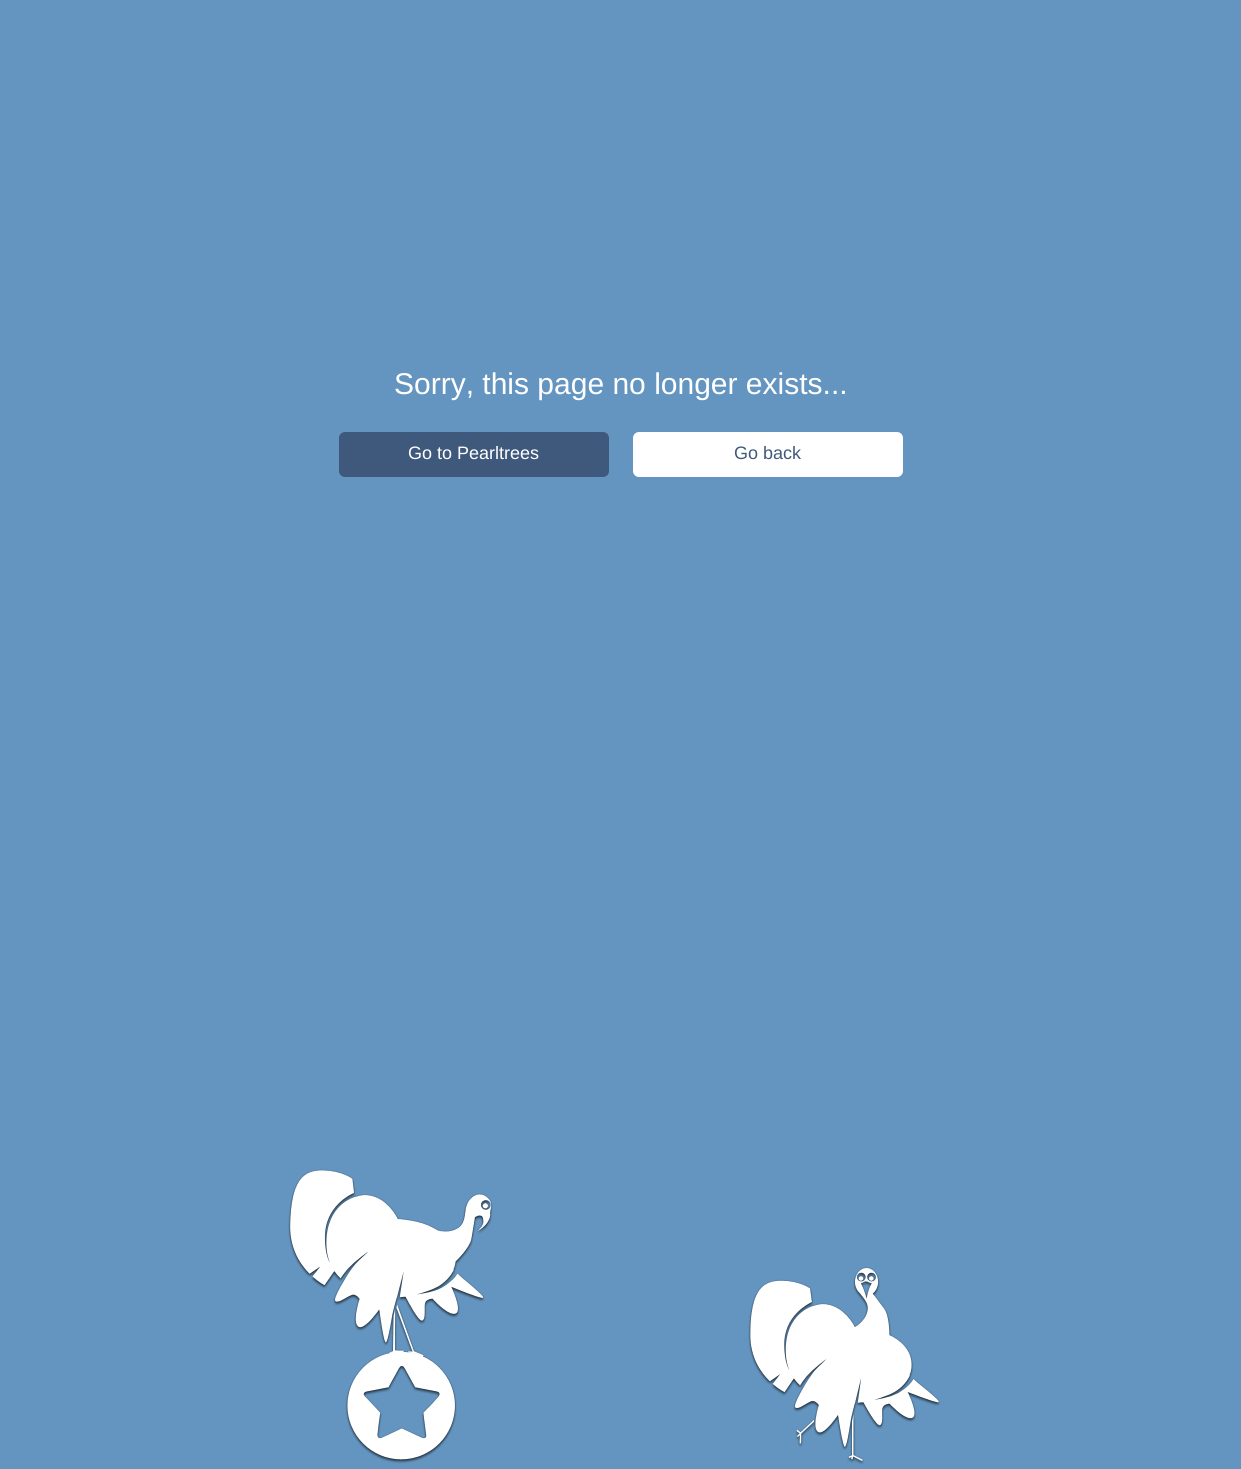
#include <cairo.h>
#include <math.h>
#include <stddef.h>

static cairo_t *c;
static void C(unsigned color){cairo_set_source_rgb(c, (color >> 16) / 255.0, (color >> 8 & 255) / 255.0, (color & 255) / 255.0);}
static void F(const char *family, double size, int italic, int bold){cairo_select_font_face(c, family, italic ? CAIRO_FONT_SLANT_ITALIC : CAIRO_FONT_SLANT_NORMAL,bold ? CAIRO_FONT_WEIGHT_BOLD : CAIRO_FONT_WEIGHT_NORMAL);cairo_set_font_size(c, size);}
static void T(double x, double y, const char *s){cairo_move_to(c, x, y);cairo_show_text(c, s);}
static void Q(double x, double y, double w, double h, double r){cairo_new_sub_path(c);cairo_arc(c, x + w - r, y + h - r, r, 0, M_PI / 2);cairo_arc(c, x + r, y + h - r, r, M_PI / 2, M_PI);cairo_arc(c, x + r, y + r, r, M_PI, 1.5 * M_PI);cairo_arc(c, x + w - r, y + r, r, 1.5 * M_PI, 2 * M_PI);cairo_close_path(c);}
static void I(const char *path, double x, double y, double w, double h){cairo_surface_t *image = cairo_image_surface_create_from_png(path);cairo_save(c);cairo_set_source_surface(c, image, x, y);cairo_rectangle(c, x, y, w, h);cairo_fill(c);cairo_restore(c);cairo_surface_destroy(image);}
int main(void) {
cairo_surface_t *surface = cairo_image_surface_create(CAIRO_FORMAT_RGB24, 1241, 1469);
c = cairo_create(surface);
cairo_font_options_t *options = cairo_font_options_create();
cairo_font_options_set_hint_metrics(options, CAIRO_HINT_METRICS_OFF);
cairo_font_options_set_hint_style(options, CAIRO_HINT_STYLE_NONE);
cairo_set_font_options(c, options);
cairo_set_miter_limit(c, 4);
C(0x6495c0);
cairo_paint(c);
F("Liberation Sans",30,0,0);
C(0xffffff);
T(394,394,"Sorry, this page no longer exists...");
C(0x3f597c);
Q(339,432,270,45,6);
cairo_fill(c);
F("Liberation Sans",18,0,0);
C(0xffffff);
T(408,459,"Go to Pearltrees");
Q(633,432,270,45,6);
cairo_fill(c);
C(0x3f597c);
T(734,459,"Go back");
I("1.png",288,1169,205,295);
I("2.png",748,1267,192,198);
cairo_surface_write_to_png(surface, "o.png");
cairo_font_options_destroy(options);
cairo_destroy(c);
cairo_surface_destroy(surface);
return 0;
}
